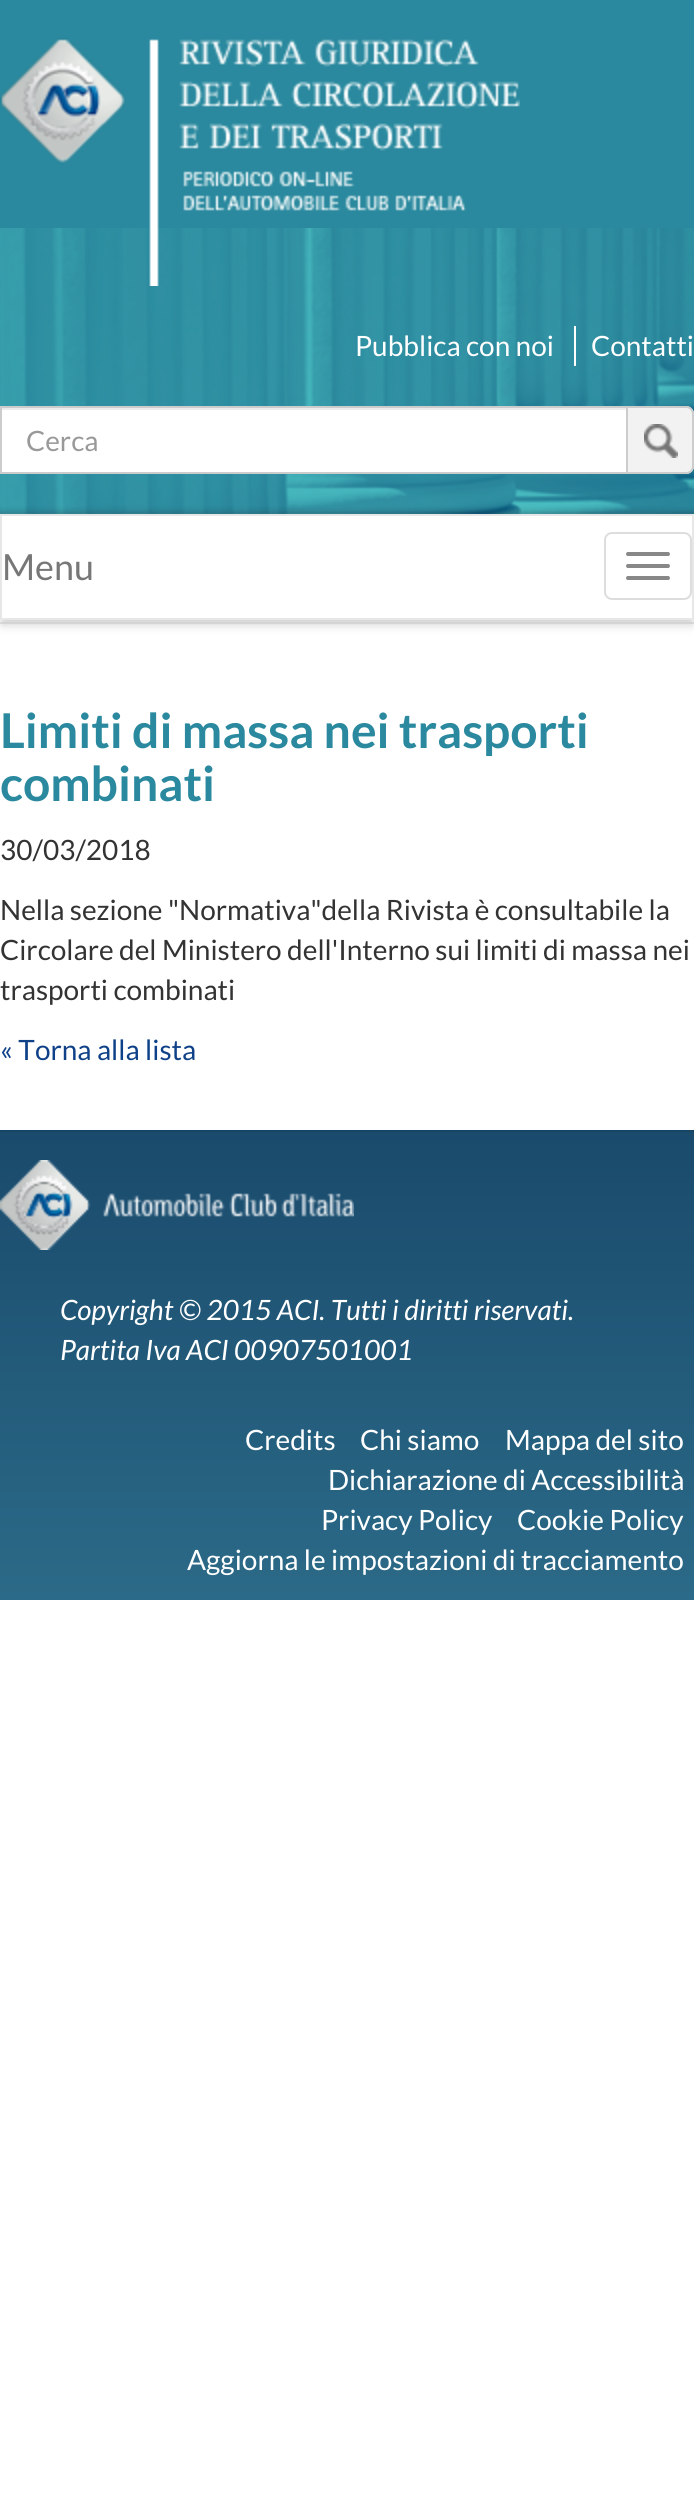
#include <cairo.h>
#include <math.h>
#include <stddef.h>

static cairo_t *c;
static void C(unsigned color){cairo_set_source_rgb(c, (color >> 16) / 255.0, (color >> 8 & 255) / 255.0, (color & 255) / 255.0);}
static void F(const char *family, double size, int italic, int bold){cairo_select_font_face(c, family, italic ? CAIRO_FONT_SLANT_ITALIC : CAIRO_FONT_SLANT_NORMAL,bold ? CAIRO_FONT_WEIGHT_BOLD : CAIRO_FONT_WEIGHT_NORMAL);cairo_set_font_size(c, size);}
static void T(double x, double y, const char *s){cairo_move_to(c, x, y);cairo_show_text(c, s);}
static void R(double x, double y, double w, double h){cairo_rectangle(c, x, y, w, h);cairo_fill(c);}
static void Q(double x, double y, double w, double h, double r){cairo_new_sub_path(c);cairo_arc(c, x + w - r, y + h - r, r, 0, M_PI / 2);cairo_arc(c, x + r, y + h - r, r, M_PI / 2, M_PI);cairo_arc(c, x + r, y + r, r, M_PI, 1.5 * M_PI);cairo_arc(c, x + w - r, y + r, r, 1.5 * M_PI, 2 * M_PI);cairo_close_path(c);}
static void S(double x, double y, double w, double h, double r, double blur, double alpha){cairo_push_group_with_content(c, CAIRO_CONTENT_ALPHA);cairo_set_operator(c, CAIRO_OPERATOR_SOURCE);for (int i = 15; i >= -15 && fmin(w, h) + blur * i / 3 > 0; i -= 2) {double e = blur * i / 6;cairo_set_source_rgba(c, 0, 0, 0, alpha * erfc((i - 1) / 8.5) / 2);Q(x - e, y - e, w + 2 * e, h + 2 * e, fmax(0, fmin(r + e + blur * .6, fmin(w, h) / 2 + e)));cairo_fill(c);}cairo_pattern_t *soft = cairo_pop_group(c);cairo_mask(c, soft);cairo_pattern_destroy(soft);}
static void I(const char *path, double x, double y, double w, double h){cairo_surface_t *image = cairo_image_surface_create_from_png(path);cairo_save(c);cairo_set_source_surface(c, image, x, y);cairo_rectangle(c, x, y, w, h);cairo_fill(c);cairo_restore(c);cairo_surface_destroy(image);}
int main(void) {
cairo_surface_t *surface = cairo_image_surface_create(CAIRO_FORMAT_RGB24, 694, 2516);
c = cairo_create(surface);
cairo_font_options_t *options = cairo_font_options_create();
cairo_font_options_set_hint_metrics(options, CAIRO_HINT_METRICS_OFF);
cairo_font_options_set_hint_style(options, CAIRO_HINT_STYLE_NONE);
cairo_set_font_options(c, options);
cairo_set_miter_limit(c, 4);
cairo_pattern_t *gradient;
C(0xffffff);
cairo_paint(c);
C(0x2a899e);
R(0,0,694,228);
I("1.png",0,228,694,286);
I("2.png",0,38,520,248);
C(0xffffff);
R(574,326,2,40);
F("Lato",28,0,0);
T(355,356,"Pubblica con noi");
T(591,356,"Contatti");
R(2,410,624,62);
C(0xececec);
R(2,408,624,2);
cairo_rectangle(c,1,407,626,66);
C(0xcccccc);
cairo_stroke(c);
C(0x999999);
T(26,451,"Cerca");
C(0xf2f2f2);
cairo_new_path(c);
cairo_move_to(c,626,406);
cairo_line_to(c,686,406);
cairo_curve_to(c,690.5,406,694,409.5,694,414);
cairo_line_to(c,694,466);
cairo_curve_to(c,694,470.5,690.5,474,686,474);
cairo_line_to(c,626,474);
cairo_close_path(c);
cairo_fill(c);
I("3.png",644,424,34,34);
cairo_new_path(c);
cairo_move_to(c,627,407);
cairo_line_to(c,686,407);
cairo_curve_to(c,690,407,693,410,693,414);
cairo_line_to(c,693,466);
cairo_curve_to(c,693,470,690,473,686,473);
cairo_line_to(c,627,473);
cairo_close_path(c);
C(0xcccccc);
cairo_stroke(c);
C(0xdfdfdf);
R(0,622,694,2);
cairo_save(c);
cairo_set_fill_rule(c,CAIRO_FILL_RULE_EVEN_ODD);
cairo_new_path(c);
cairo_move_to(c,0,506);
cairo_line_to(c,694,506);
cairo_line_to(c,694,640);
cairo_line_to(c,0,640);
cairo_close_path(c);
cairo_move_to(c,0,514);
cairo_line_to(c,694,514);
cairo_line_to(c,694,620);
cairo_line_to(c,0,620);
cairo_close_path(c);
cairo_clip(c);
C(0xcccccc);
S(2,522,690,102,0,5,1);
cairo_restore(c);
cairo_rectangle(c,1,515,692,104);
C(0xe7e7e7);
cairo_stroke(c);
F("Lato",36,0,0);
C(0x777777);
T(2,580,"Menu");
Q(605,533,86,66,7);
C(0xdddddd);
cairo_stroke(c);
C(0x888888);
Q(626,552,44,4,2);
cairo_fill(c);
Q(626,564,44,4,2);
cairo_fill(c);
Q(626,576,44,4,2);
cairo_fill(c);
F("Lato",48,0,1);
C(0x2a899e);
T(0,748,"Limiti di massa nei trasporti");
T(0,801,"combinati");
F("Lato",28,0,0);
C(0x333333);
T(0,860,"30/03/2018");
T(0,920,"Nella sezione \"Normativa\"della Rivista è consultabile la");
T(0,960,"Circolare del Ministero dell'Interno sui limiti di massa nei");
T(0,1000,"trasporti combinati");
C(0x0f4188);
T(0,1060,"« Torna alla lista");
gradient = cairo_pattern_create_linear(347,1130,347,1600);
cairo_pattern_add_color_stop_rgba(gradient,0,0.102,0.29,0.424,1);
cairo_pattern_add_color_stop_rgba(gradient,1,0.169,0.416,0.533,1);
cairo_set_source(c,gradient);
cairo_pattern_destroy(gradient);
R(0,1132,694,468);
C(0x194565);
R(0,1130,694,2);
I("4.png",0,1160,354,90);
F("Lato",28,1,0);
C(0xffffff);
T(60,1320,"Copyright © 2015 ACI. Tutti i diritti riservati.");
T(60,1360,"Partita Iva ACI 00907501001");
F("Lato",28,0,0);
T(245,1450,"Credits");
T(360,1450,"Chi siamo");
T(505,1450,"Mappa del sito");
T(328,1490,"Dichiarazione di Accessibilità");
T(321,1530,"Privacy Policy");
T(517,1530,"Cookie Policy");
T(187,1570,"Aggiorna le impostazioni di tracciamento");
cairo_surface_write_to_png(surface, "o.png");
cairo_font_options_destroy(options);
cairo_destroy(c);
cairo_surface_destroy(surface);
return 0;
}
